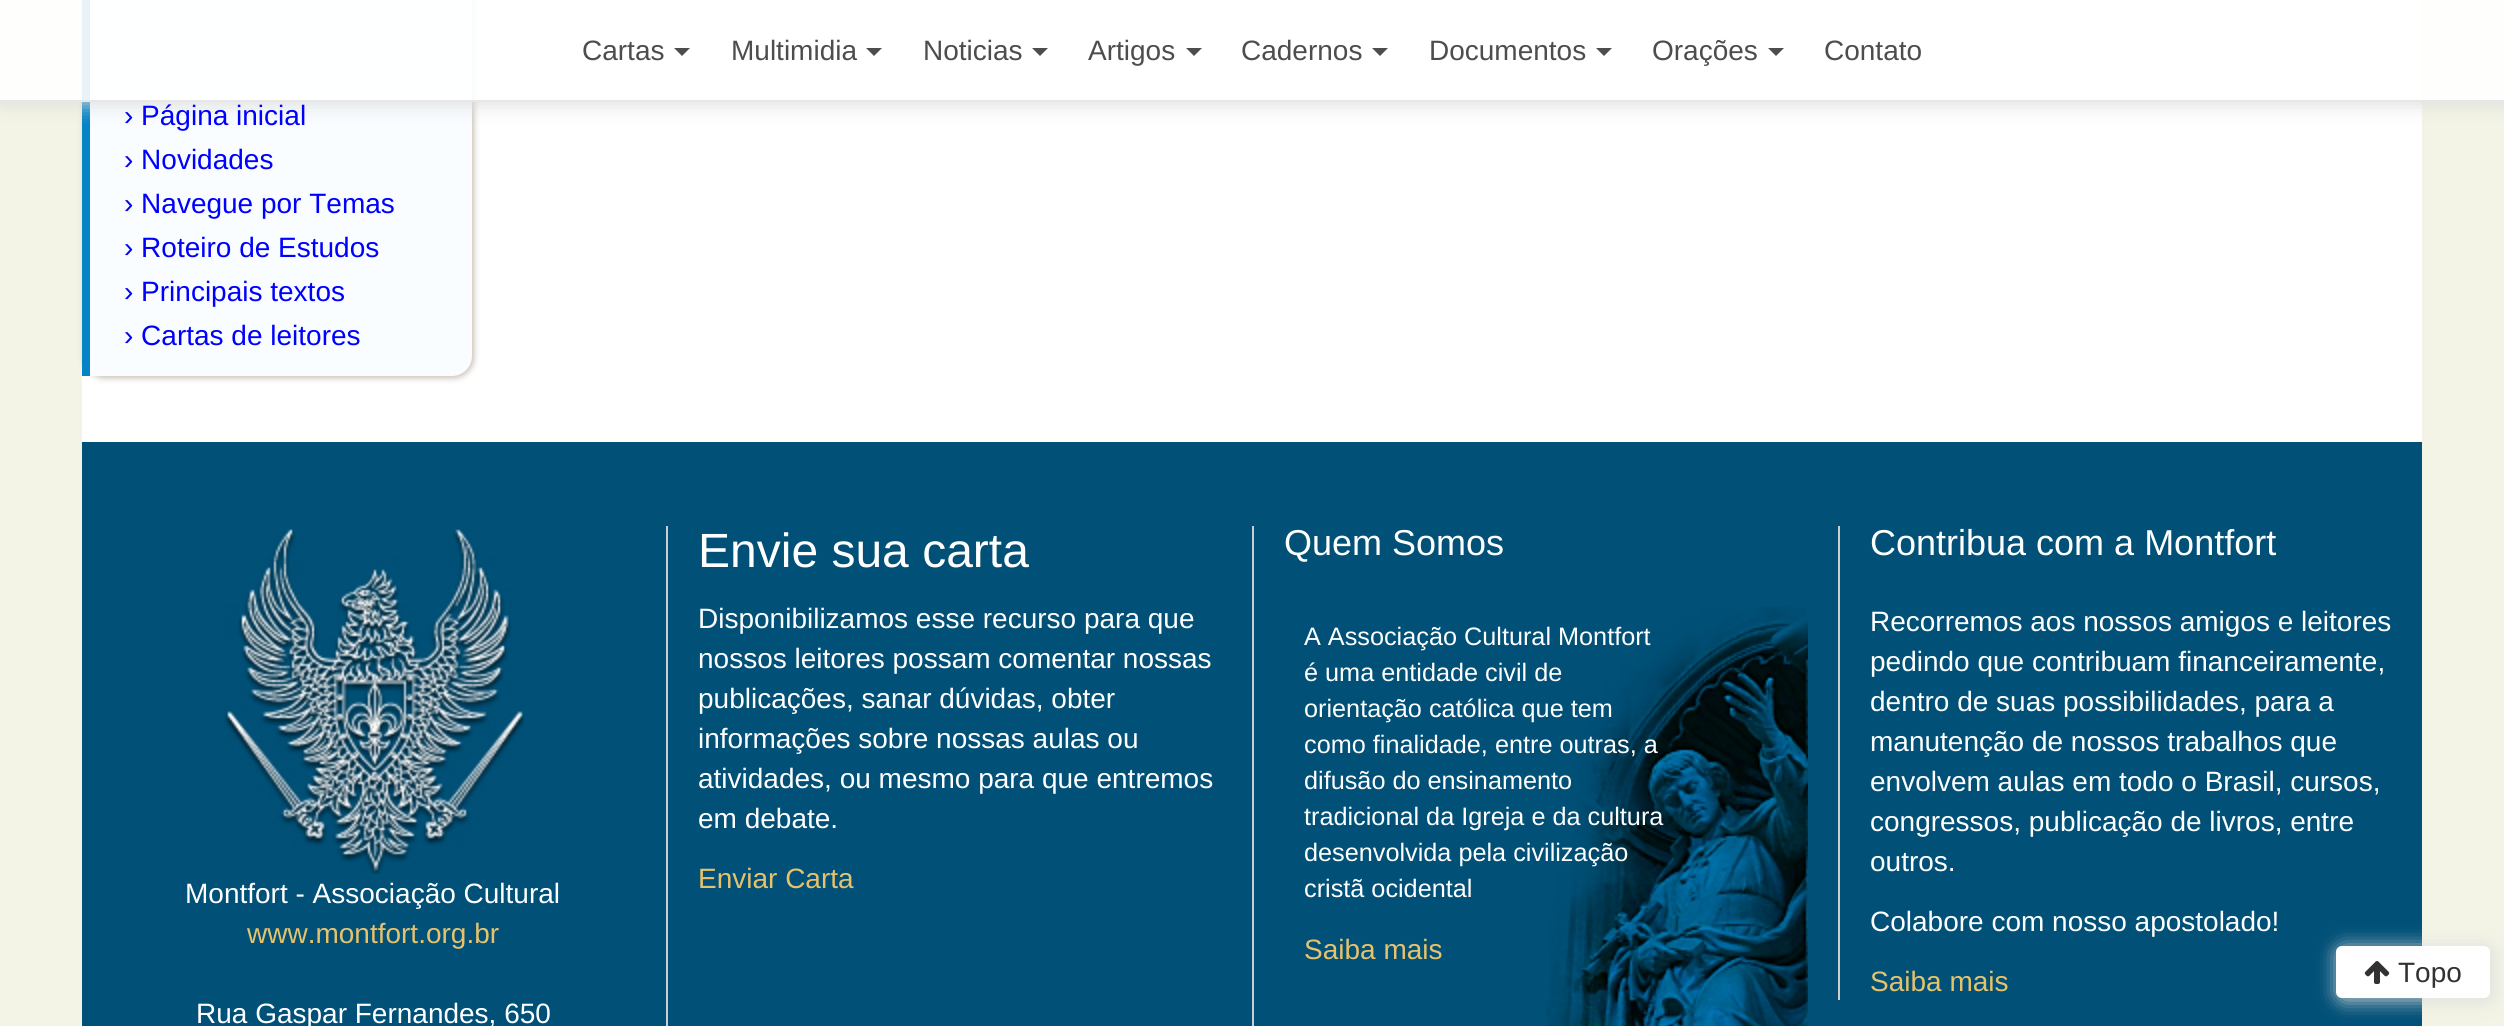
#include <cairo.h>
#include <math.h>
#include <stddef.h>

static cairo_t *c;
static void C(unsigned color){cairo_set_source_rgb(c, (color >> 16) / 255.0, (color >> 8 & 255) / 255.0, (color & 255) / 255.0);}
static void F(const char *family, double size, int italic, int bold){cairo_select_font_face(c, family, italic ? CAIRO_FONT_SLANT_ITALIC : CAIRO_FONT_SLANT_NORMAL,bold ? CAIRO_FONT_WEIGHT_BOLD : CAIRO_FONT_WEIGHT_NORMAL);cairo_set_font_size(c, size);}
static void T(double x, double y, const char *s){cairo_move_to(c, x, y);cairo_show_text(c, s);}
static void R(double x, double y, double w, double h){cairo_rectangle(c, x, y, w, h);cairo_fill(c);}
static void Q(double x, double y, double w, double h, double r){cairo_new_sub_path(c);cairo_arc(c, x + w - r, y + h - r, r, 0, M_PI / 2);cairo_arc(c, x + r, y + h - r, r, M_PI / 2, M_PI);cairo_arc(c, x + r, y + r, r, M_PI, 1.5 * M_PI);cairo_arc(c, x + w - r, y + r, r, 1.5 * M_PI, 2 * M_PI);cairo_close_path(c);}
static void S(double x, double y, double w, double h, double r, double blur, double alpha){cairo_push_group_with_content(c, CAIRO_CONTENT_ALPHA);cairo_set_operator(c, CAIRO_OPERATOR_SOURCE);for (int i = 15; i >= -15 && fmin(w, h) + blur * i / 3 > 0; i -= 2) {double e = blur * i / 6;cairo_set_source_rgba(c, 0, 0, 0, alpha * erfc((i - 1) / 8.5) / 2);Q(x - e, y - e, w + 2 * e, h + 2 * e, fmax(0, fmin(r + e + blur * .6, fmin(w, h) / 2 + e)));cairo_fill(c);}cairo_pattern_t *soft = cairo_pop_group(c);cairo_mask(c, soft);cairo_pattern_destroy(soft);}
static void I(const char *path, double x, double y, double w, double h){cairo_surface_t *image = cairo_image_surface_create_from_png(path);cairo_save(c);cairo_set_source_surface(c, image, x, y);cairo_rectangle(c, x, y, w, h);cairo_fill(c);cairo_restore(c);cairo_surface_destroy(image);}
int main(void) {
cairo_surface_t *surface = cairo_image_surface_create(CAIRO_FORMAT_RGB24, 2504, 1026);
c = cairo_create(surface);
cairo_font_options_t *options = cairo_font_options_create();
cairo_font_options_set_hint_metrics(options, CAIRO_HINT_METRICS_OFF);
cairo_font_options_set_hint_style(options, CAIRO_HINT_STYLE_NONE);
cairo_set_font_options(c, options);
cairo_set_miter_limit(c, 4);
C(0xf3f4e5);
cairo_paint(c);
C(0xffffff);
R(82,0,2340,442);
C(0xc8beb4);
S(84,-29,390,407,20,3,1);
C(0xf9fdff);
cairo_new_path(c);
cairo_move_to(c,82,-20);
cairo_line_to(c,452,-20);
cairo_curve_to(c,463,-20,472,-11,472,0);
cairo_line_to(c,472,356);
cairo_curve_to(c,472,367,463,376,452,376);
cairo_line_to(c,82,376);
cairo_close_path(c);
cairo_fill(c);
C(0x0683c6);
R(82,0,8,376);
cairo_save(c);
cairo_rectangle(c,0,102,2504,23);
cairo_clip(c);
C(0xdcdcdc);
S(2,2,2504,102,0,10,1);
cairo_restore(c);
cairo_set_source_rgba(c,1,1,1,0.9);
R(0,0,2504,100);
C(0xe7e7e7);
R(0,100,2504,2);
F("Liberation Sans",28,0,0);
C(0x4d4d4d);
T(582,60,"Cartas");
cairo_new_path(c);
cairo_move_to(c,674,48);
cairo_line_to(c,690,48);
cairo_line_to(c,682,56);
cairo_close_path(c);
cairo_fill(c);
T(731,60,"Multimidia");
cairo_new_path(c);
cairo_move_to(c,866,48);
cairo_line_to(c,882,48);
cairo_line_to(c,874,56);
cairo_close_path(c);
cairo_fill(c);
T(923,60,"Noticias");
cairo_new_path(c);
cairo_move_to(c,1032,48);
cairo_line_to(c,1048,48);
cairo_line_to(c,1040,56);
cairo_close_path(c);
cairo_fill(c);
T(1088,60,"Artigos");
cairo_new_path(c);
cairo_move_to(c,1186,48);
cairo_line_to(c,1202,48);
cairo_line_to(c,1194,56);
cairo_close_path(c);
cairo_fill(c);
T(1241,60,"Cadernos");
cairo_new_path(c);
cairo_move_to(c,1372,48);
cairo_line_to(c,1388,48);
cairo_line_to(c,1380,56);
cairo_close_path(c);
cairo_fill(c);
T(1429,60,"Documentos");
cairo_new_path(c);
cairo_move_to(c,1596,48);
cairo_line_to(c,1612,48);
cairo_line_to(c,1604,56);
cairo_close_path(c);
cairo_fill(c);
T(1652,60,"Orações");
cairo_new_path(c);
cairo_move_to(c,1768,48);
cairo_line_to(c,1784,48);
cairo_line_to(c,1776,56);
cairo_close_path(c);
cairo_fill(c);
T(1824,60,"Contato");
C(0x0000ff);
T(124,125,"› Página inicial");
T(124,169,"› Novidades");
T(124,213,"› Navegue por Temas");
T(124,257,"› Roteiro de Estudos");
T(124,301,"› Principais textos");
T(124,345,"› Cartas de leitores");
C(0x005077);
R(82,442,2340,584);
C(0xcdcdcd);
R(666,526,2,500);
F("Liberation Sans",48,0,0);
C(0xffffff);
T(698,567,"Envie sua carta");
F("Liberation Sans",28,0,0);
T(698,628,"Disponibilizamos esse recurso para que");
T(698,668,"nossos leitores possam comentar nossas");
T(698,708,"publicações, sanar dúvidas, obter");
T(698,748,"informações sobre nossas aulas ou");
T(698,788,"atividades, ou mesmo para que entremos");
T(698,828,"em debate.");
C(0xe6c26c);
T(698,888,"Enviar Carta");
C(0xcdcdcd);
R(1252,526,2,500);
F("Liberation Sans",36,0,0);
C(0xffffff);
T(1284,555,"Quem Somos");
I("1.png",1546,607,262,419);
F("Liberation Sans",25.25,0,0);
T(1304,645,"A Associação Cultural Montfort");
T(1304,681,"é uma entidade civil de");
T(1304,717,"orientação católica que tem");
T(1304,753,"como finalidade, entre outras, a");
T(1304,789,"difusão do ensinamento");
T(1304,825,"tradicional da Igreja e da cultura");
T(1304,861,"desenvolvida pela civilização");
T(1304,897,"cristã ocidental");
F("Liberation Sans",28,0,0);
C(0xe6c26c);
T(1304,959,"Saiba mais");
C(0xcdcdcd);
R(1838,526,2,474);
F("Liberation Sans",36,0,0);
C(0xffffff);
T(1870,555,"Contribua com a Montfort");
F("Liberation Sans",28,0,0);
T(1870,631,"Recorremos aos nossos amigos e leitores");
T(1870,671,"pedindo que contribuam financeiramente,");
T(1870,711,"dentro de suas possibilidades, para a");
T(1870,751,"manutenção de nossos trabalhos que");
T(1870,791,"envolvem aulas em todo o Brasil, cursos,");
T(1870,831,"congressos, publicação de livros, entre");
T(1870,871,"outros.");
T(1870,931,"Colabore com nosso apostolado!");
C(0xe6c26c);
T(1870,991,"Saiba mais");
I("2.png",224,529,300,345);
C(0xffffff);
T(185,903,"Montfort - Associação Cultural");
C(0xe6c26c);
T(247,943,"www.montfort.org.br");
C(0xffffff);
T(196,1023,"Rua Gaspar Fernandes, 650");
C(0xdcdcdc);
S(2338,948,154,52,6,10,1);
C(0xffffff);
Q(2336,946,154,52,6);
cairo_fill(c);
I("3.png",2364,961,26,23);
C(0x323232);
T(2398,982,"Topo");
cairo_surface_write_to_png(surface, "o.png");
cairo_font_options_destroy(options);
cairo_destroy(c);
cairo_surface_destroy(surface);
return 0;
}
